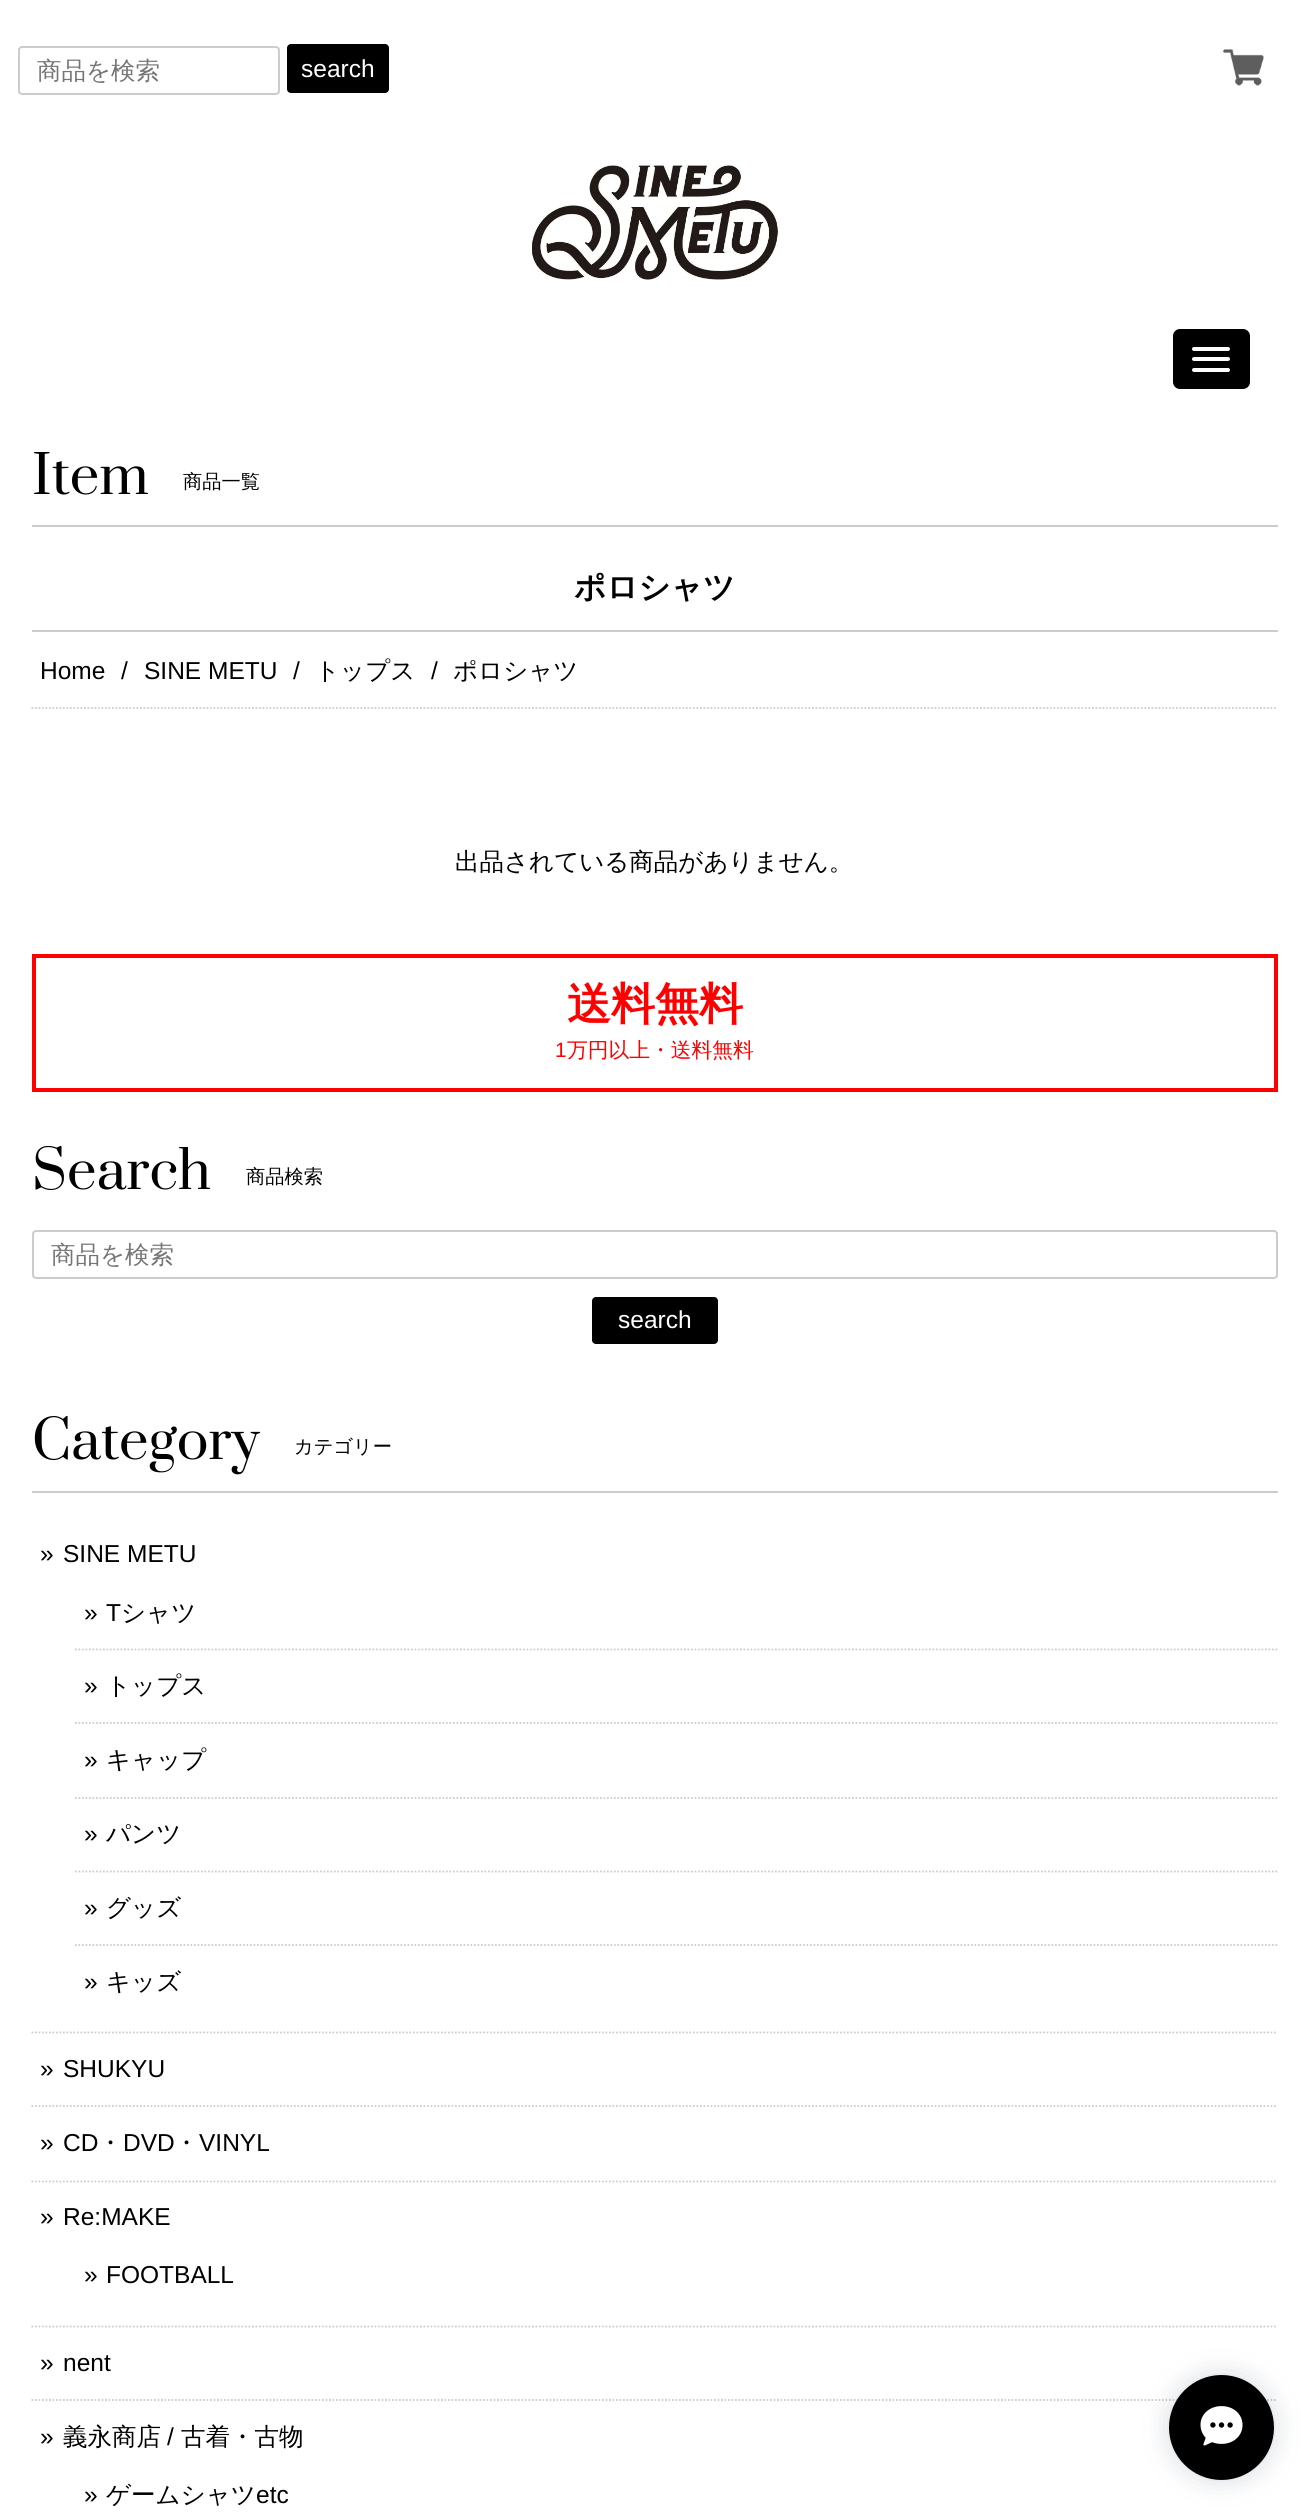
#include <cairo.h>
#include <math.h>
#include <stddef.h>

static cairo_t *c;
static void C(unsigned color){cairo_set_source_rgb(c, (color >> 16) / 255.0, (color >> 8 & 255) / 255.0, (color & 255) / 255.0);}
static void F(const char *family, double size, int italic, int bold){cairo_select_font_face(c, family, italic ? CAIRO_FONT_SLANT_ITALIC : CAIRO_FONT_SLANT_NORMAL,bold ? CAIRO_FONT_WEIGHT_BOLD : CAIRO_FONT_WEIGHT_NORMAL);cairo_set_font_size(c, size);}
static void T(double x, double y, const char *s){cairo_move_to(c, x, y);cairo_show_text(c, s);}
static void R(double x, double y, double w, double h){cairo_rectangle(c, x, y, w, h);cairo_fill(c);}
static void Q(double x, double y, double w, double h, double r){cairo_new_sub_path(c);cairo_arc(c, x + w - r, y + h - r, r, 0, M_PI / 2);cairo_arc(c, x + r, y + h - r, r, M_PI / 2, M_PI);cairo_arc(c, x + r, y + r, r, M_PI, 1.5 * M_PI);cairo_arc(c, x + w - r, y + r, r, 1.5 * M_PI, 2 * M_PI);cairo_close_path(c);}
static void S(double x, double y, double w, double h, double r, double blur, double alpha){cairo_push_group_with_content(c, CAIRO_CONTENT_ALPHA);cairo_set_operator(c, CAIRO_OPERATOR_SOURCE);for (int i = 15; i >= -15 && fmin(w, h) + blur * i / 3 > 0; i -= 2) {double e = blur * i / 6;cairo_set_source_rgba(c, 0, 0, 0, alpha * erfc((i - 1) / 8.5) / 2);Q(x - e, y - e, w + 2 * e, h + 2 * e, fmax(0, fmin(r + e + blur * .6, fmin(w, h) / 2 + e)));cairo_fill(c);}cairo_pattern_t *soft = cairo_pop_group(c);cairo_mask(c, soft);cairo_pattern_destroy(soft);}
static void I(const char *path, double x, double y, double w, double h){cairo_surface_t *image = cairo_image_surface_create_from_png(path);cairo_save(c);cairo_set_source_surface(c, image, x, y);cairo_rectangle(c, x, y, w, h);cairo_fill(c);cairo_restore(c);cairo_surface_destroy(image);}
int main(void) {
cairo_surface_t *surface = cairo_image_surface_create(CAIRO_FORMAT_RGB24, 1309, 2514);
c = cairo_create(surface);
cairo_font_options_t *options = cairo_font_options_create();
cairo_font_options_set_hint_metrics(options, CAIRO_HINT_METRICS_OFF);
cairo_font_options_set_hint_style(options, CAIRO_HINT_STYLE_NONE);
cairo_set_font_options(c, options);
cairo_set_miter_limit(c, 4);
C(0xffffff);
cairo_paint(c);
Q(19,47,260,47,3);
C(0xcccccc);
cairo_stroke(c);
F("WenQuanYi Zen Hei Medium",24.5,0,0);
C(0x757575);
T(37,79,"商品を検索");
C(0x000000);
Q(287,44,102,49,4);
cairo_fill(c);
F("Liberation Sans",24.5,0,0);
C(0xffffff);
T(301,77,"search");
I("1.png",1223,49,41,37);
I("2.png",532,164,247,116);
C(0x000000);
Q(1173,329,77,60,7);
cairo_fill(c);
C(0xffffff);
Q(1192,347,38,4,2);
cairo_fill(c);
Q(1192,357,38,4,2);
cairo_fill(c);
Q(1192,368,38,4,2);
cairo_fill(c);
C(0xcccccc);
R(32,525,1246,2);
F("Prata",52.5,0,0);
C(0x000000);
T(32,494,"Item");
F("WenQuanYi Zen Hei Medium",19.25,0,0);
T(183,488,"商品一覧");
C(0xcccccc);
R(32,630,1246,2);
F("WenQuanYi Zen Hei",31.5,0,1);
C(0x000000);
T(574,598,"ポロシャツ");
cairo_new_path(c);
cairo_move_to(c,31.5,708);
cairo_line_to(c,1277.5,708);
C(0xcccccc);
cairo_set_line_width(c,1.8);
cairo_set_dash(c,(double[]){1.75,1.75},2,0);
cairo_stroke(c);
F("Liberation Sans",24.5,0,0);
C(0x000000);
T(40,679,"Home");
T(121,679,"/");
T(144,679,"SINE METU");
T(293,679,"/");
F("WenQuanYi Zen Hei Medium",24.5,0,0);
T(315,679,"トップス");
F("Liberation Sans",24.5,0,0);
T(431,679,"/");
F("WenQuanYi Zen Hei Medium",24.5,0,0);
T(453,679,"ポロシャツ");
T(455,870,"出品されている商品がありません。");
cairo_rectangle(c,34,956,1242,134);
C(0xff0000);
cairo_set_line_width(c,4);
cairo_set_dash(c,NULL,0,0);
cairo_stroke(c);
F("WenQuanYi Zen Hei",44,0,1);
T(567,1019,"送料無料");
F("Liberation Sans",20.75,0,0);
T(555,1057,"1");
F("WenQuanYi Zen Hei Medium",20.75,0,0);
T(567,1057,"万円以上・送料無料");
F("Prata",52.5,0,0);
C(0x000000);
T(32,1189,"Search");
F("WenQuanYi Zen Hei Medium",19.25,0,0);
T(246,1183,"商品検索");
Q(33,1231,1244,47,3);
C(0xcccccc);
cairo_set_line_width(c,2);
cairo_stroke(c);
F("WenQuanYi Zen Hei Medium",24.5,0,0);
C(0x757575);
T(51,1263,"商品を検索");
C(0x000000);
Q(592,1297,126,47,4);
cairo_fill(c);
F("Liberation Sans",24.5,0,0);
C(0xffffff);
T(618,1328,"search");
C(0xcccccc);
R(32,1491,1246,2);
F("Prata",52.5,0,0);
C(0x000000);
T(32,1459,"Category");
F("WenQuanYi Zen Hei Medium",19.25,0,0);
T(294,1453,"カテゴリー");
cairo_new_path(c);
cairo_move_to(c,31.5,2032.5);
cairo_line_to(c,1277.5,2032.5);
C(0xcccccc);
cairo_set_line_width(c,1.8);
cairo_set_dash(c,(double[]){1.75,1.75},2,0);
cairo_stroke(c);
F("Liberation Sans",24.5,0,0);
C(0x000000);
T(40,1562,"»");
T(63,1562,"SINE METU");
cairo_new_path(c);
cairo_move_to(c,75,1649.5);
cairo_line_to(c,1277.5,1649.5);
C(0xcccccc);
cairo_stroke(c);
C(0x000000);
T(84,1621,"»");
T(106,1621,"T");
F("WenQuanYi Zen Hei Medium",24.5,0,0);
T(121,1621,"シャツ");
cairo_new_path(c);
cairo_move_to(c,75,1723);
cairo_line_to(c,1277.5,1723);
C(0xcccccc);
cairo_stroke(c);
F("Liberation Sans",24.5,0,0);
C(0x000000);
T(84,1694,"»");
F("WenQuanYi Zen Hei Medium",24.5,0,0);
T(106,1694,"トップス");
cairo_new_path(c);
cairo_move_to(c,75,1798);
cairo_line_to(c,1277.5,1798);
C(0xcccccc);
cairo_stroke(c);
F("Liberation Sans",24.5,0,0);
C(0x000000);
T(84,1768,"»");
F("WenQuanYi Zen Hei Medium",24.5,0,0);
T(106,1768,"キャップ");
cairo_new_path(c);
cairo_move_to(c,75,1871.5);
cairo_line_to(c,1277.5,1871.5);
C(0xcccccc);
cairo_stroke(c);
F("Liberation Sans",24.5,0,0);
C(0x000000);
T(84,1842,"»");
F("WenQuanYi Zen Hei Medium",24.5,0,0);
T(106,1842,"パンツ");
cairo_new_path(c);
cairo_move_to(c,75,1945);
cairo_line_to(c,1277.5,1945);
C(0xcccccc);
cairo_stroke(c);
F("Liberation Sans",24.5,0,0);
C(0x000000);
T(84,1916,"»");
F("WenQuanYi Zen Hei Medium",24.5,0,0);
T(106,1916,"グッズ");
F("Liberation Sans",24.5,0,0);
T(84,1990,"»");
F("WenQuanYi Zen Hei Medium",24.5,0,0);
T(106,1990,"キッズ");
cairo_new_path(c);
cairo_move_to(c,31.5,2106);
cairo_line_to(c,1277.5,2106);
C(0xcccccc);
cairo_stroke(c);
F("Liberation Sans",24.5,0,0);
C(0x000000);
T(40,2077,"»");
T(63,2077,"SHUKYU");
cairo_new_path(c);
cairo_move_to(c,31.5,2181.5);
cairo_line_to(c,1277.5,2181.5);
C(0xcccccc);
cairo_stroke(c);
C(0x000000);
T(40,2151,"»");
T(63,2151,"CD");
F("WenQuanYi Zen Hei Medium",24.5,0,0);
T(98,2151,"・");
F("Liberation Sans",24.5,0,0);
T(123,2151,"DVD");
F("WenQuanYi Zen Hei Medium",24.5,0,0);
T(174,2151,"・");
F("Liberation Sans",24.5,0,0);
T(199,2151,"VINYL");
cairo_new_path(c);
cairo_move_to(c,31.5,2326.5);
cairo_line_to(c,1277.5,2326.5);
C(0xcccccc);
cairo_stroke(c);
C(0x000000);
T(40,2225,"»");
T(63,2225,"Re:MAKE");
T(84,2283,"»");
T(106,2283,"FOOTBALL");
cairo_new_path(c);
cairo_move_to(c,31.5,2400);
cairo_line_to(c,1277.5,2400);
C(0xcccccc);
cairo_stroke(c);
C(0x000000);
T(40,2371,"»");
T(63,2371,"nent");
T(40,2445,"»");
F("WenQuanYi Zen Hei Medium",24.5,0,0);
T(63,2445,"義永商店");
F("Liberation Sans",24.5,0,0);
T(167,2445,"/");
F("WenQuanYi Zen Hei Medium",24.5,0,0);
T(181,2445,"古着・古物");
F("Liberation Sans",24.5,0,0);
T(84,2503,"»");
F("WenQuanYi Zen Hei Medium",24.5,0,0);
T(106,2503,"ゲームシャツ");
F("Liberation Sans",24.5,0,0);
T(256,2503,"etc");
C(0x334258);
S(1169,2375,105,105,52.5,13,.2);
C(0x000000);
cairo_arc(c,1221.5,2427.5,52.5,0,2 * M_PI);
cairo_fill(c);
I("3.png",1200,2406,43,40);
cairo_surface_write_to_png(surface, "o.png");
cairo_font_options_destroy(options);
cairo_destroy(c);
cairo_surface_destroy(surface);
return 0;
}
